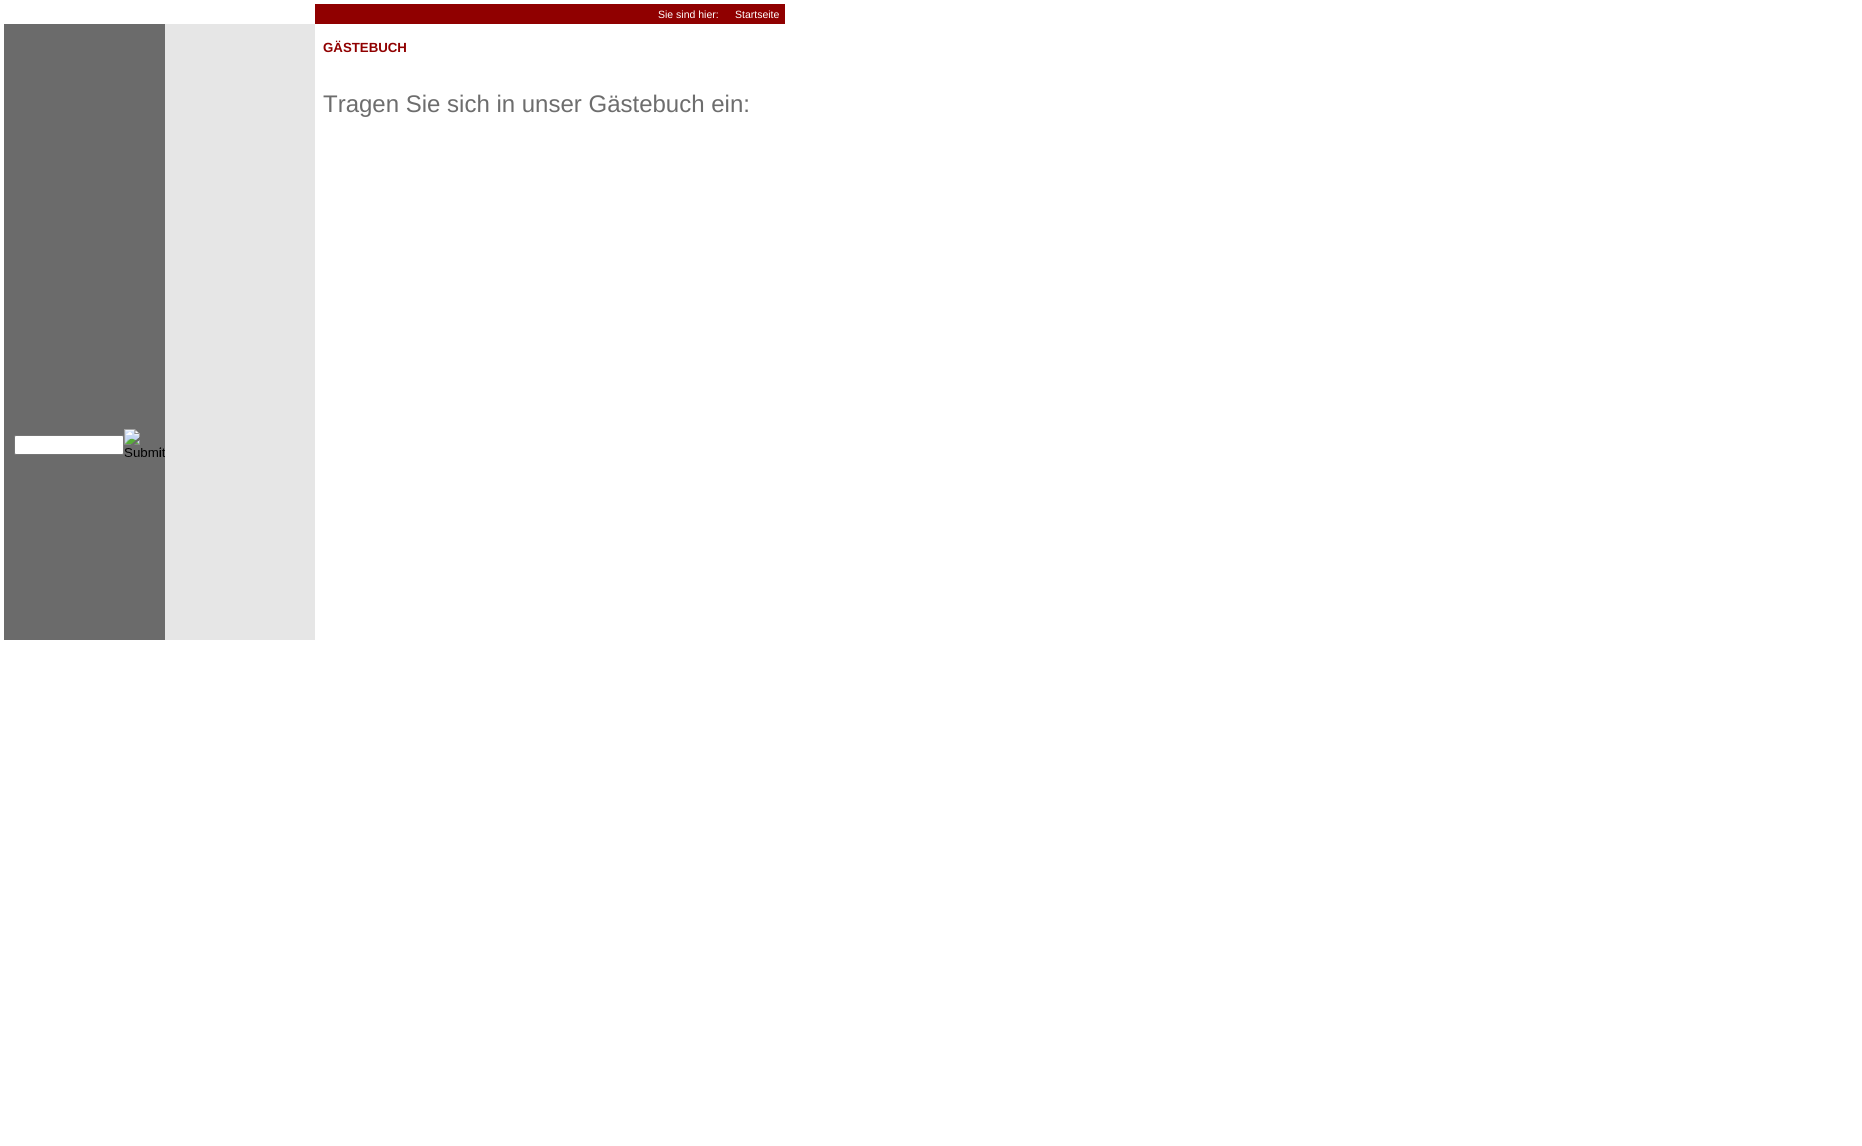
#include <cairo.h>
#include <math.h>
#include <stddef.h>

static cairo_t *c;
static void C(unsigned color){cairo_set_source_rgb(c, (color >> 16) / 255.0, (color >> 8 & 255) / 255.0, (color & 255) / 255.0);}
static void F(const char *family, double size, int italic, int bold){cairo_select_font_face(c, family, italic ? CAIRO_FONT_SLANT_ITALIC : CAIRO_FONT_SLANT_NORMAL,bold ? CAIRO_FONT_WEIGHT_BOLD : CAIRO_FONT_WEIGHT_NORMAL);cairo_set_font_size(c, size);}
static void T(double x, double y, const char *s){cairo_move_to(c, x, y);cairo_show_text(c, s);}
static void R(double x, double y, double w, double h){cairo_rectangle(c, x, y, w, h);cairo_fill(c);}
static void Q(double x, double y, double w, double h, double r){cairo_new_sub_path(c);cairo_arc(c, x + w - r, y + h - r, r, 0, M_PI / 2);cairo_arc(c, x + r, y + h - r, r, M_PI / 2, M_PI);cairo_arc(c, x + r, y + r, r, M_PI, 1.5 * M_PI);cairo_arc(c, x + w - r, y + r, r, 1.5 * M_PI, 2 * M_PI);cairo_close_path(c);}
static void I(const char *path, double x, double y, double w, double h){cairo_surface_t *image = cairo_image_surface_create_from_png(path);cairo_save(c);cairo_set_source_surface(c, image, x, y);cairo_rectangle(c, x, y, w, h);cairo_fill(c);cairo_restore(c);cairo_surface_destroy(image);}
int main(void) {
cairo_surface_t *surface = cairo_image_surface_create(CAIRO_FORMAT_RGB24, 1862, 1146);
c = cairo_create(surface);
cairo_font_options_t *options = cairo_font_options_create();
cairo_font_options_set_hint_metrics(options, CAIRO_HINT_METRICS_OFF);
cairo_font_options_set_hint_style(options, CAIRO_HINT_STYLE_NONE);
cairo_set_font_options(c, options);
cairo_set_miter_limit(c, 4);
C(0xffffff);
cairo_paint(c);
C(0x900000);
R(315,4,470,20);
F("Liberation Sans",10.5,0,0);
C(0xffffff);
T(658,18,"Sie sind hier:");
T(735,18,"Startseite");
C(0xe6e6e6);
R(165,24,150,616);
F("Liberation Sans",13.25,0,1);
C(0x900000);
T(323,52,"GÄSTEBUCH");
F("Liberation Sans",24,0,0);
C(0x6d6d6d);
T(323,112,"Tragen Sie sich in unser Gästebuch ein:");
C(0x6b6b6b);
R(4,24,161,616);
C(0xffffff);
Q(14.5,435.5,109,19,1.5);
cairo_fill_preserve(c);
C(0x767676);
cairo_set_line_width(c,1);
cairo_stroke(c);
I("1.png",124,429,41,28);
F("Liberation Sans",13.25,0,0);
C(0x000000);
T(159,457,"i");
cairo_surface_write_to_png(surface, "o.png");
cairo_font_options_destroy(options);
cairo_destroy(c);
cairo_surface_destroy(surface);
return 0;
}
